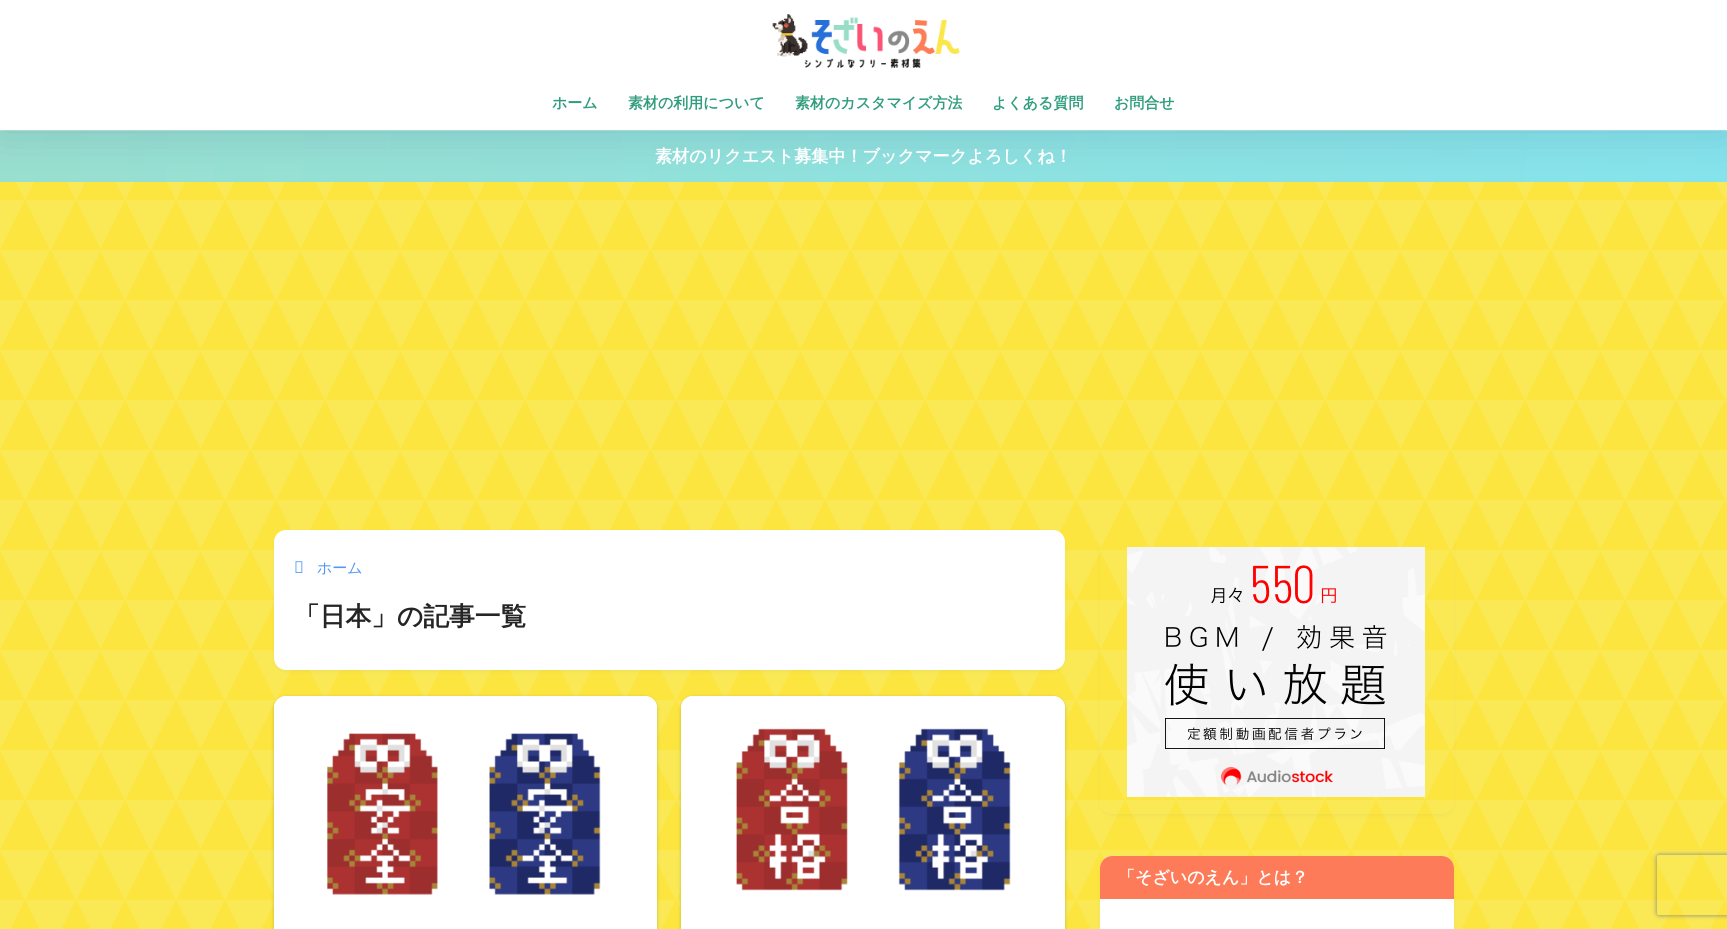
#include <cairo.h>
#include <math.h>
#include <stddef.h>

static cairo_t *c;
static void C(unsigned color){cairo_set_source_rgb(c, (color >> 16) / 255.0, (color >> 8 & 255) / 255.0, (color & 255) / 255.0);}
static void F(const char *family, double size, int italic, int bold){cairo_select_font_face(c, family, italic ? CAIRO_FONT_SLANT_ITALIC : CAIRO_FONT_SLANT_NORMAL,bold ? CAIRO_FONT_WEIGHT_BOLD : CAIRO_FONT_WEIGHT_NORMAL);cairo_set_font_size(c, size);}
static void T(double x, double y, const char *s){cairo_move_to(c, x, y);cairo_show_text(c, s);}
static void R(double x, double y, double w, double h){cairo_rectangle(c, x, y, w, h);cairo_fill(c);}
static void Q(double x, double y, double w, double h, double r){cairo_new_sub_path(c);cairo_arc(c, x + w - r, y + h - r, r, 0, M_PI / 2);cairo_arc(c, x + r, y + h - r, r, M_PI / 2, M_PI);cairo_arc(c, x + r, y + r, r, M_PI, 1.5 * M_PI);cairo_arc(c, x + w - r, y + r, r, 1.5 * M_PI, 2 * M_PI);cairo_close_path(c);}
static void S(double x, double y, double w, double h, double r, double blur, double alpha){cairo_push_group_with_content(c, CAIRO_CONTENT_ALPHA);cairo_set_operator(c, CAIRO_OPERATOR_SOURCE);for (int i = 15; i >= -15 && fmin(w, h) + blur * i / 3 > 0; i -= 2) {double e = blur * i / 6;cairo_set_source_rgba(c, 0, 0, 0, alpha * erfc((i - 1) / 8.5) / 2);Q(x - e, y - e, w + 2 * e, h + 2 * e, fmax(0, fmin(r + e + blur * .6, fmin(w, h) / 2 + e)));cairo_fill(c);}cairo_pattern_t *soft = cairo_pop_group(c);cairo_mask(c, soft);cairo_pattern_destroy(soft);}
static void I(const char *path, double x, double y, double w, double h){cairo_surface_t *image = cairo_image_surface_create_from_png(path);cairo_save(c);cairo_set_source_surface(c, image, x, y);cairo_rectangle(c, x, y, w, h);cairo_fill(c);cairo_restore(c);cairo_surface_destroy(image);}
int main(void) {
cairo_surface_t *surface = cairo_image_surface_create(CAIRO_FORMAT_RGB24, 1727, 929);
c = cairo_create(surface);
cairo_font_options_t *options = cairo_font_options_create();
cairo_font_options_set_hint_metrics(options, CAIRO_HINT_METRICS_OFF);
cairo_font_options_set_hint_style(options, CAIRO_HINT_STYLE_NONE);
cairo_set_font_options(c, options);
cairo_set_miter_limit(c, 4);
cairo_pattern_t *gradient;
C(0xffffff);
cairo_paint(c);
I("1.png",0,182,1727,747);
gradient = cairo_pattern_create_linear(4.3,30,1723,181);
cairo_pattern_add_color_stop_rgba(gradient,0,0.6,0.875,0.812,1);
cairo_pattern_add_color_stop_rgba(gradient,1,0.522,0.89,0.925,1);
cairo_set_source(c,gradient);
cairo_pattern_destroy(gradient);
R(0,130,1727,1);
gradient = cairo_pattern_create_linear(4.3,81,1723,232);
cairo_pattern_add_color_stop_rgba(gradient,0,0.6,0.875,0.812,1);
cairo_pattern_add_color_stop_rgba(gradient,1,0.522,0.89,0.925,1);
cairo_set_source(c,gradient);
cairo_pattern_destroy(gradient);
R(0,131,1727,51);
cairo_set_source_rgba(c,1,1,1,0.3);
R(0,130,1727,1);
C(0x000c42);
S(0,0,1727,130,0,22.5,.15);
C(0xffffff);
R(0,0,1727,130);
I("2.png",772,14,188,54);
F("WenQuanYi Zen Hei",15,0,1);
C(0x309d7e);
T(552,108,"ホーム");
T(628,108,"素材の利用について");
T(795,108,"素材のカスタマイズ方法");
T(992,108,"よくある質問");
T(1114,108,"お問合せ");
F("WenQuanYi Zen Hei",17.1,0,1);
C(0xffffff);
T(655,162,"素材のリクエスト募集中！ブックマークよろしくね！");
C(0x4385bb);
S(274,532,791,140,12,2,.07);
C(0xffffff);
Q(274,530,791,140,12);
cairo_fill(c);
I("3.png",295,561,8,12);
F("WenQuanYi Zen Hei Medium",15,0,0);
C(0x4f96f6);
T(317,573,"ホーム");
F("WenQuanYi Zen Hei",25.75,0,1);
C(0x252525);
T(294,625,"「日本」の記事一覧");
C(0x182c54);
S(273,696,385,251,13,1.5,.1);
S(274,697,383,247,12,1,.1);
C(0xffffff);
Q(274,696,383,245,12);
cairo_fill(c);
I("4.png",274,696,383,199);
C(0x182c54);
S(680,696,386,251,13,1.5,.1);
S(681,697,384,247,12,1,.1);
C(0xffffff);
Q(681,696,384,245,12);
cairo_fill(c);
I("5.png",681,696,384,195);
cairo_save(c);
cairo_set_fill_rule(c,CAIRO_FILL_RULE_EVEN_ODD);
cairo_new_path(c);
cairo_move_to(c,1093,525);
cairo_line_to(c,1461,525);
cairo_line_to(c,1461,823);
cairo_line_to(c,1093,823);
cairo_close_path(c);
cairo_move_to(c,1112,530);
cairo_line_to(c,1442,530);
cairo_curve_to(c,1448.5,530,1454,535.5,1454,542);
cairo_line_to(c,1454,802);
cairo_curve_to(c,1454,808.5,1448.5,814,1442,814);
cairo_line_to(c,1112,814);
cairo_curve_to(c,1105.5,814,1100,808.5,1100,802);
cairo_line_to(c,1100,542);
cairo_curve_to(c,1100,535.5,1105.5,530,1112,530);
cairo_close_path(c);
cairo_clip(c);
C(0x4385bb);
S(1100,532,354,284,12,2,.07);
cairo_restore(c);
I("6.png",1127,547,298,250);
C(0x4385bb);
S(1100,858,354,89,12,2,.07);
C(0xffffff);
Q(1100,856,354,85,12);
cairo_fill(c);
C(0xfd7b59);
cairo_new_path(c);
cairo_move_to(c,1112,856);
cairo_line_to(c,1442,856);
cairo_curve_to(c,1448.5,856,1454,861.5,1454,868);
cairo_line_to(c,1454,899);
cairo_line_to(c,1100,899);
cairo_line_to(c,1100,868);
cairo_curve_to(c,1100,861.5,1105.5,856,1112,856);
cairo_close_path(c);
cairo_fill(c);
F("WenQuanYi Zen Hei",17,0,1);
C(0xffffff);
T(1118,883,"「そざいのえん」とは？");
cairo_save(c);
cairo_set_fill_rule(c,CAIRO_FILL_RULE_EVEN_ODD);
cairo_new_path(c);
cairo_move_to(c,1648,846);
cairo_line_to(c,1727,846);
cairo_line_to(c,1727,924);
cairo_line_to(c,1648,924);
cairo_close_path(c);
cairo_move_to(c,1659,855);
cairo_line_to(c,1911,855);
cairo_curve_to(c,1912,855,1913,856,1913,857);
cairo_line_to(c,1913,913);
cairo_curve_to(c,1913,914,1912,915,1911,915);
cairo_line_to(c,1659,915);
cairo_curve_to(c,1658,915,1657,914,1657,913);
cairo_line_to(c,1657,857);
cairo_curve_to(c,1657,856,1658,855,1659,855);
cairo_close_path(c);
cairo_clip(c);
C(0x808080);
S(1657,855,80,60,2,2.5,1);
cairo_restore(c);
cairo_surface_write_to_png(surface, "o.png");
cairo_font_options_destroy(options);
cairo_destroy(c);
cairo_surface_destroy(surface);
return 0;
}
